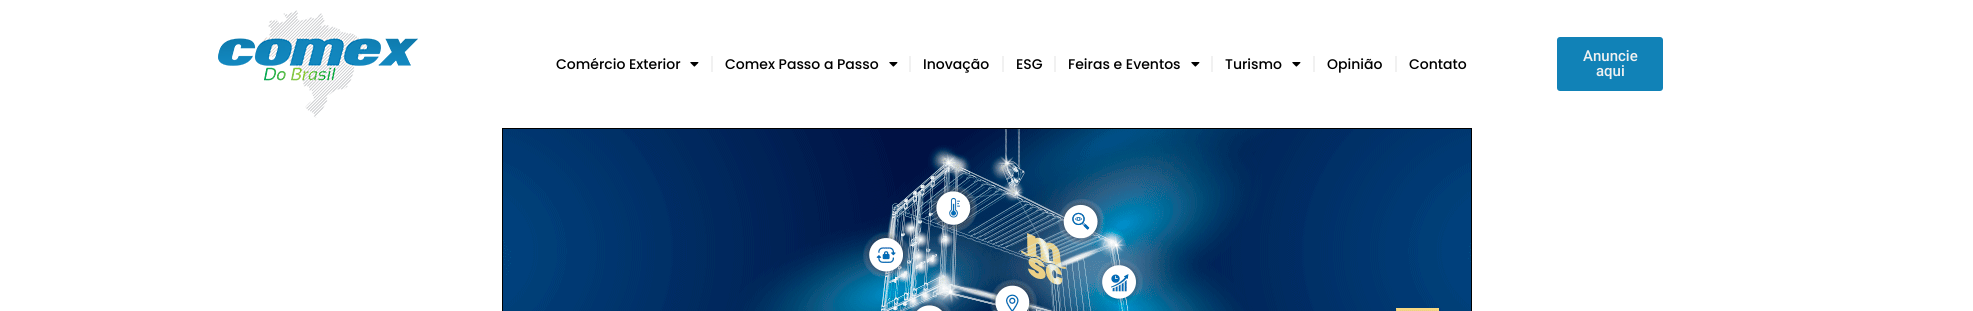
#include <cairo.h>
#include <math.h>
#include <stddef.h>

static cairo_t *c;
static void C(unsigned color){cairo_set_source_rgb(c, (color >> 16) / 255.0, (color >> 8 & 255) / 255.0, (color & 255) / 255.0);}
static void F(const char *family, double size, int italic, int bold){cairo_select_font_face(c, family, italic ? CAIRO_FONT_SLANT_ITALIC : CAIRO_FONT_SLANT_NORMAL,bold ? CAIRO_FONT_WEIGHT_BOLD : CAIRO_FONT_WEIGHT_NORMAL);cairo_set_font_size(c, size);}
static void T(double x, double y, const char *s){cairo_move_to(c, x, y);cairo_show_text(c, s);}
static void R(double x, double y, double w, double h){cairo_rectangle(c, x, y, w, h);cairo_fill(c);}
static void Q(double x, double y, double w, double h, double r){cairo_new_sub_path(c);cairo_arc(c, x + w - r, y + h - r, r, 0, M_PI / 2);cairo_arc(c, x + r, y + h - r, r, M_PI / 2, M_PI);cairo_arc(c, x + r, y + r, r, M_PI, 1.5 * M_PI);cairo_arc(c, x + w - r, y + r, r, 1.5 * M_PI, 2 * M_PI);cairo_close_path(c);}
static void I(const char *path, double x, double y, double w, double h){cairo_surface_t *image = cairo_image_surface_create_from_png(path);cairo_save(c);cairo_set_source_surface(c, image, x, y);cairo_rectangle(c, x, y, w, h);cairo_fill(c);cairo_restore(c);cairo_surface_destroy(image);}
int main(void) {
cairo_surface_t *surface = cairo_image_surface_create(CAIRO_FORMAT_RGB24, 1973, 311);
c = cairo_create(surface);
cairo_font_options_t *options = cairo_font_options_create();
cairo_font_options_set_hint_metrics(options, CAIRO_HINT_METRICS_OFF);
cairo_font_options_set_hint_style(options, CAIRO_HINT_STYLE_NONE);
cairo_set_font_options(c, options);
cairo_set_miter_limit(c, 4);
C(0xffffff);
cairo_paint(c);
I("1.png",218,10,200,108);
F("Poppins Medium",14,0,0);
C(0x000000);
T(556,69,"Comércio Exterior");
I("2.png",690,62,9,5);
C(0xf1f1f1);
R(711,56,2,16);
C(0x000000);
T(725,69,"Comex Passo a Passo");
I("2.png",889,62,9,5);
C(0xf1f1f1);
R(909,56,2,16);
C(0x000000);
T(923,69,"Inovação");
C(0xf1f1f1);
R(1002,56,2,16);
C(0x000000);
T(1016,69,"ESG");
C(0xf1f1f1);
R(1054,56,2,16);
C(0x000000);
T(1068,69,"Feiras e Eventos");
I("2.png",1191,62,9,5);
C(0xf1f1f1);
R(1211,56,2,16);
C(0x000000);
T(1225,69,"Turismo");
I("2.png",1292,62,9,5);
C(0xf1f1f1);
R(1313,56,2,16);
C(0x000000);
T(1327,69,"Opinião");
C(0xf1f1f1);
R(1395,56,2,16);
C(0x000000);
T(1409,69,"Contato");
C(0x1182b7);
Q(1557,37,106,54,3);
cairo_fill(c);
F("Roboto Medium",15,0,0);
C(0xf1f1f1);
T(1583,61,"Anuncie");
T(1596,76,"aqui");
I("3.png",502,128,970,183);
cairo_surface_write_to_png(surface, "o.png");
cairo_font_options_destroy(options);
cairo_destroy(c);
cairo_surface_destroy(surface);
return 0;
}
